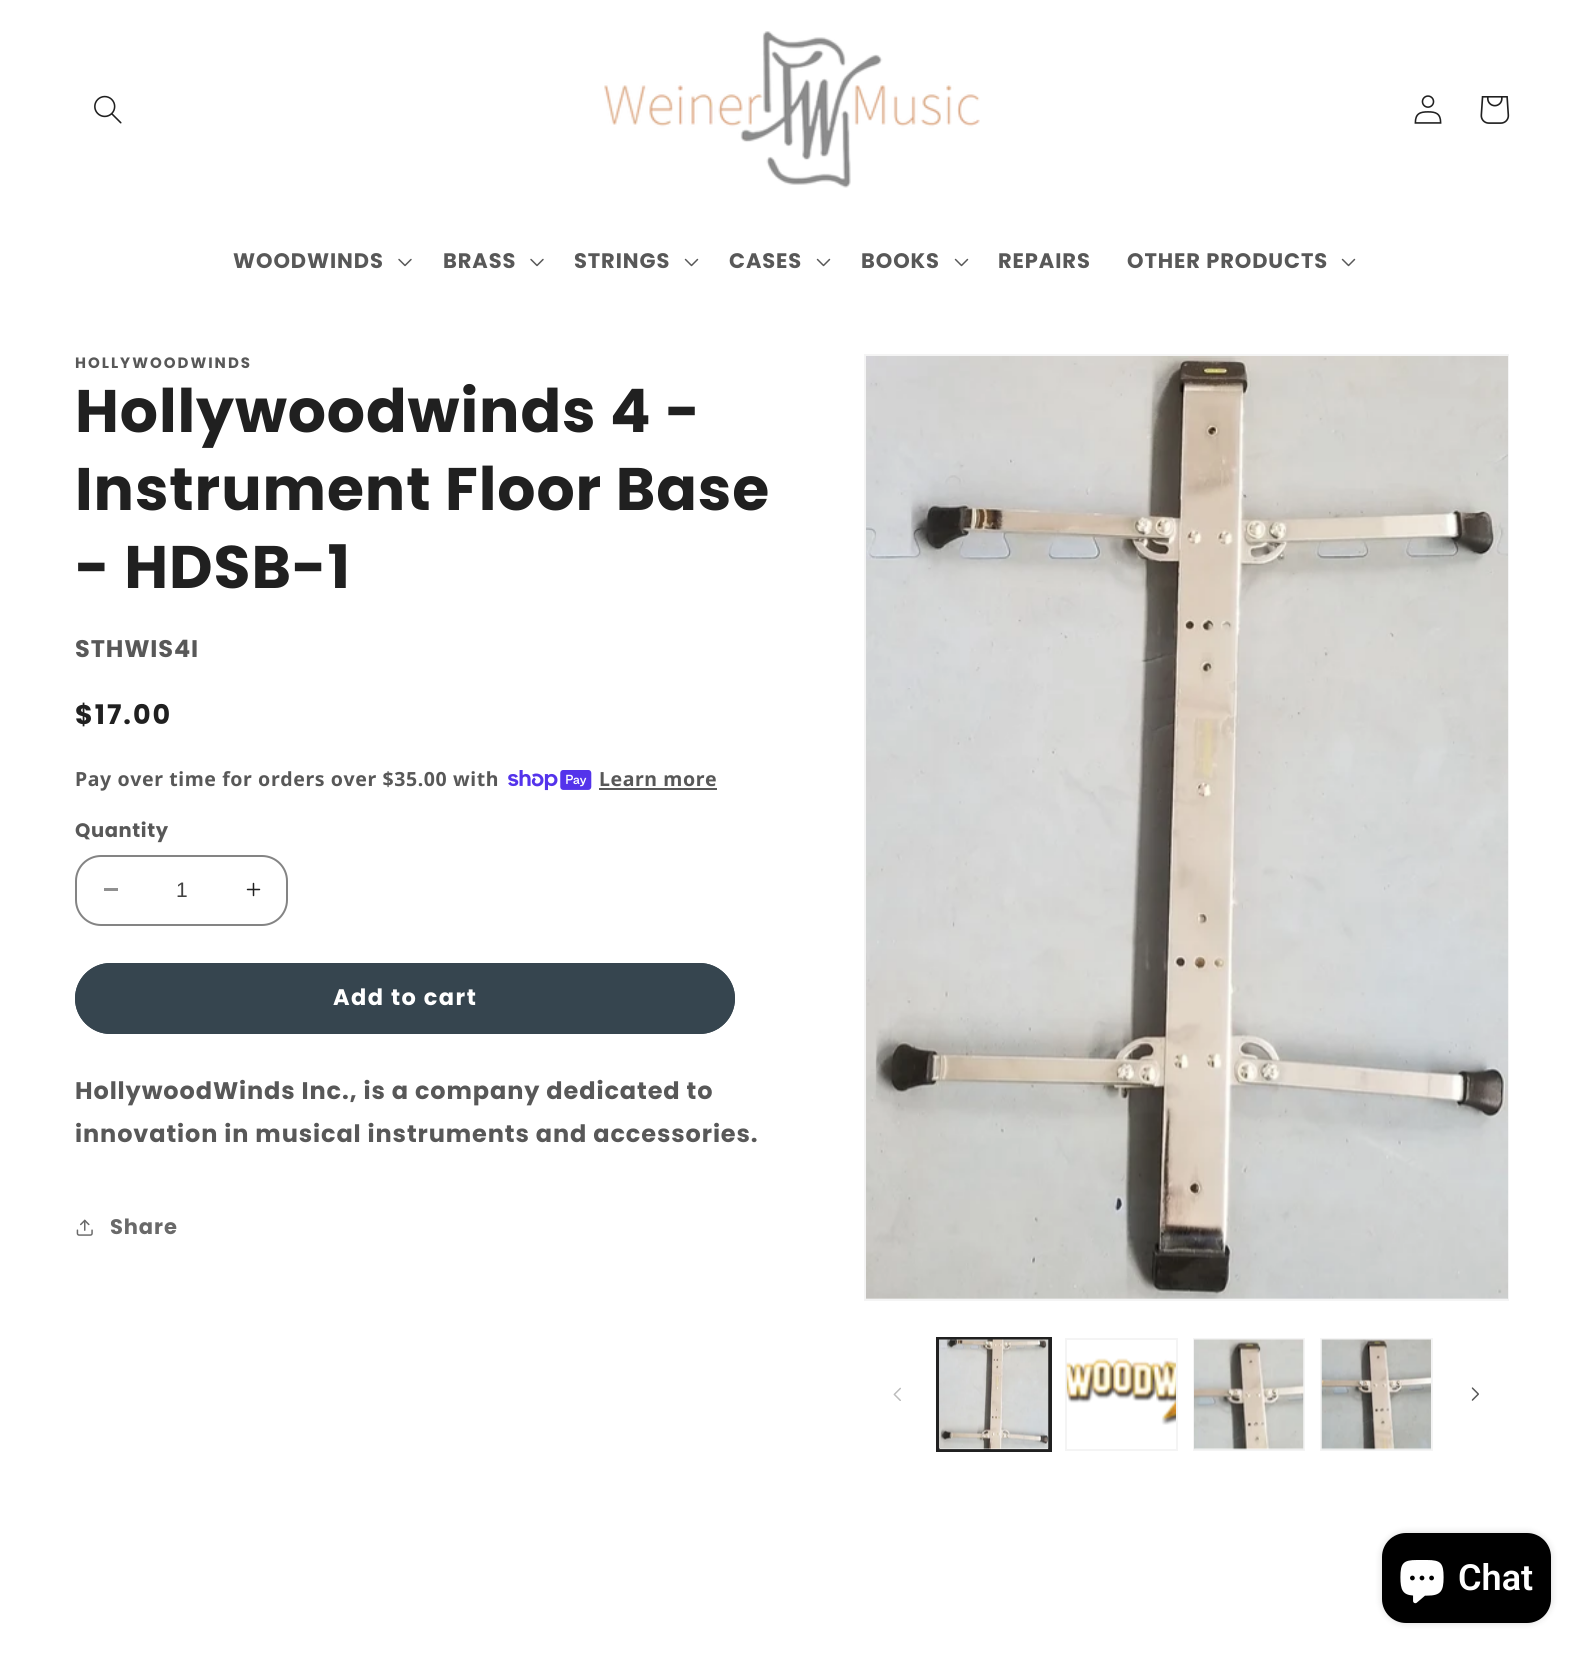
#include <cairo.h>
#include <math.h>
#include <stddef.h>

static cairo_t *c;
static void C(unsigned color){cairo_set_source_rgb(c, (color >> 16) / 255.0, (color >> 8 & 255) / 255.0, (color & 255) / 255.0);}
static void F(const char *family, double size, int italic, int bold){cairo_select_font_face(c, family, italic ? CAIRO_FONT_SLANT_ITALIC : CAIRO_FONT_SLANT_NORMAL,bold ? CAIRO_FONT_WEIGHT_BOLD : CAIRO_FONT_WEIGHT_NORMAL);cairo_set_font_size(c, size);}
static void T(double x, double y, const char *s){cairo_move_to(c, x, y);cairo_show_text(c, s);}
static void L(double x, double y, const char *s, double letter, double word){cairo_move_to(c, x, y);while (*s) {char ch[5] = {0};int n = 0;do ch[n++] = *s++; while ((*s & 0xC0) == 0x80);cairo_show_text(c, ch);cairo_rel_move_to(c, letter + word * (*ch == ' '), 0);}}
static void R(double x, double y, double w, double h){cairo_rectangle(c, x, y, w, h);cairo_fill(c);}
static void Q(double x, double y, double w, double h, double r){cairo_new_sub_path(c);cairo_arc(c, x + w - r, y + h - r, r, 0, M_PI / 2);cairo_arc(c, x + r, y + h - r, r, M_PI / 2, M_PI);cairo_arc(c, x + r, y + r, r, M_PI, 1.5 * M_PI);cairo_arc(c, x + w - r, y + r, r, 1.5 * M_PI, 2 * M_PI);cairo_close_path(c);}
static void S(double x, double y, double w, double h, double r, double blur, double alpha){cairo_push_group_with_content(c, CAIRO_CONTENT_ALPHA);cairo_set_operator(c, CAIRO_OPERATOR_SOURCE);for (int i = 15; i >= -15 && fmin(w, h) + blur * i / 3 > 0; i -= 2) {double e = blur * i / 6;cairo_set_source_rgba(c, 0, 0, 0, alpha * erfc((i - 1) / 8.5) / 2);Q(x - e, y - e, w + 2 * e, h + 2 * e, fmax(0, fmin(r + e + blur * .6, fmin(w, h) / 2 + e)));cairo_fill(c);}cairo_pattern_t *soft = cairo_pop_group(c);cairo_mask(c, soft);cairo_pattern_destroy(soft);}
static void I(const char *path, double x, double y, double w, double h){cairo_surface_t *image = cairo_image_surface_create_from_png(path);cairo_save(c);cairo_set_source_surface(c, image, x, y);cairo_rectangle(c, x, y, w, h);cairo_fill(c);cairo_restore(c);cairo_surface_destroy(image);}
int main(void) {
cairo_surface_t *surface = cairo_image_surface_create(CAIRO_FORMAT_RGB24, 1584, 1654);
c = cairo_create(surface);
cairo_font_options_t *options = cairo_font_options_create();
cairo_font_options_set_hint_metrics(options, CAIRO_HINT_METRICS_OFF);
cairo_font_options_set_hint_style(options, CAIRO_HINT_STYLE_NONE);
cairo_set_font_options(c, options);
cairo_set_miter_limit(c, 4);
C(0xffffff);
cairo_paint(c);
I("1.png",94,95,28,29);
I("2.png",604,31,376,157);
I("3.png",1414,95,28,29);
I("4.png",1480,96,30,28);
F("Poppins",21,0,1);
C(0x585858);
L(233,268,"WOODWINDS",.9,0);
I("5.png",398,258,14,9);
L(443,268,"BRASS",.9,0);
I("5.png",530,258,14,9);
L(574,268,"STRINGS",.9,0);
I("6.png",684,258,15,9);
L(729,268,"CASES",.9,0);
I("6.png",816,258,15,9);
L(861,268,"BOOKS",.9,0);
I("6.png",954,258,15,9);
L(998,268,"REPAIRS",.9,0);
L(1127,268,"OTHER PRODUCTS",.9,0);
I("6.png",1341,258,15,9);
F("Poppins",15,0,1);
L(75,368,"HOLLYWOODWINDS",2,0);
F("Poppins",60,0,1);
C(0x202020);
L(75,432,"Hollywoodwinds 4 -",.9,0);
L(75,510,"Instrument Floor Base",.9,0);
L(75,588,"- HDSB-1",.9,0);
F("Poppins",24,0,1);
C(0x585858);
L(75,657,"STHWIS4I",.9,0);
F("Poppins",27,0,1);
C(0x202020);
L(75,724,"$17.00",2,0);
F("Noto Sans",19.5,0,1);
C(0x585858);
L(75,786,"Pay over time for orders over $35.00 with",.6,0);
I("7.png",508,770,84,21);
L(599,786,"Learn more",.6,0);
R(599,788,118,2);
F("Poppins",19.5,0,1);
L(75,837,"Quantity",.6,0);
C(0x909090);
R(104,888,14,3);
I("8.png",246,882,15,15);
Q(76,856,211,69,25);
C(0x848484);
cairo_stroke(c);
F("Liberation Sans",21,0,0);
C(0x414141);
T(176,897,"1");
C(0x36454f);
Q(75,963,660,71,35.5);
cairo_fill(c);
Q(76,964,658,69,34.5);
cairo_stroke(c);
F("Poppins",22.5,0,1);
C(0xffffff);
L(333,1005,"Add to cart",1.5,0);
F("Poppins",24,0,1);
C(0x585858);
L(75,1099,"HollywoodWinds Inc., is a company dedicated to",.9,0);
L(75,1142,"innovation in musical instruments and accessories.",.9,0);
I("9.png",76,1219,17,17);
F("Poppins",21,0,1);
C(0x696969);
L(110,1234,"Share",.9,0);
cairo_rectangle(c,865,355,643,945);
C(0xf4f4f4);
cairo_stroke(c);
I("10.png",866,356,642,943);
I("11.png",893,1387,8,14);
cairo_rectangle(c,937,1338,114,113);
C(0x202020);
cairo_stroke(c);
cairo_rectangle(c,939,1339,110,111);
cairo_stroke(c);
I("12.png",939,1339,110,111);
cairo_rectangle(c,1066,1339,111,111);
C(0xf4f4f4);
cairo_stroke(c);
I("13.png",1066,1358,110,67);
cairo_rectangle(c,1194,1339,110,111);
cairo_stroke(c);
I("14.png",1194,1339,110,111);
cairo_rectangle(c,1321,1339,111,111);
cairo_stroke(c);
I("15.png",1321,1339,110,111);
I("16.png",1471,1387,8,14);
C(0x000000);
S(1382,1533,169,90,24,4,.15);
C(0x000000);
Q(1382,1533,169,90,24);
cairo_fill(c);
I("17.png",1400,1560,44,44);
F("Roboto SemiBold",36,0,0);
C(0xffffff);
T(1458,1590,"Chat");
cairo_surface_write_to_png(surface, "o.png");
cairo_font_options_destroy(options);
cairo_destroy(c);
cairo_surface_destroy(surface);
return 0;
}
